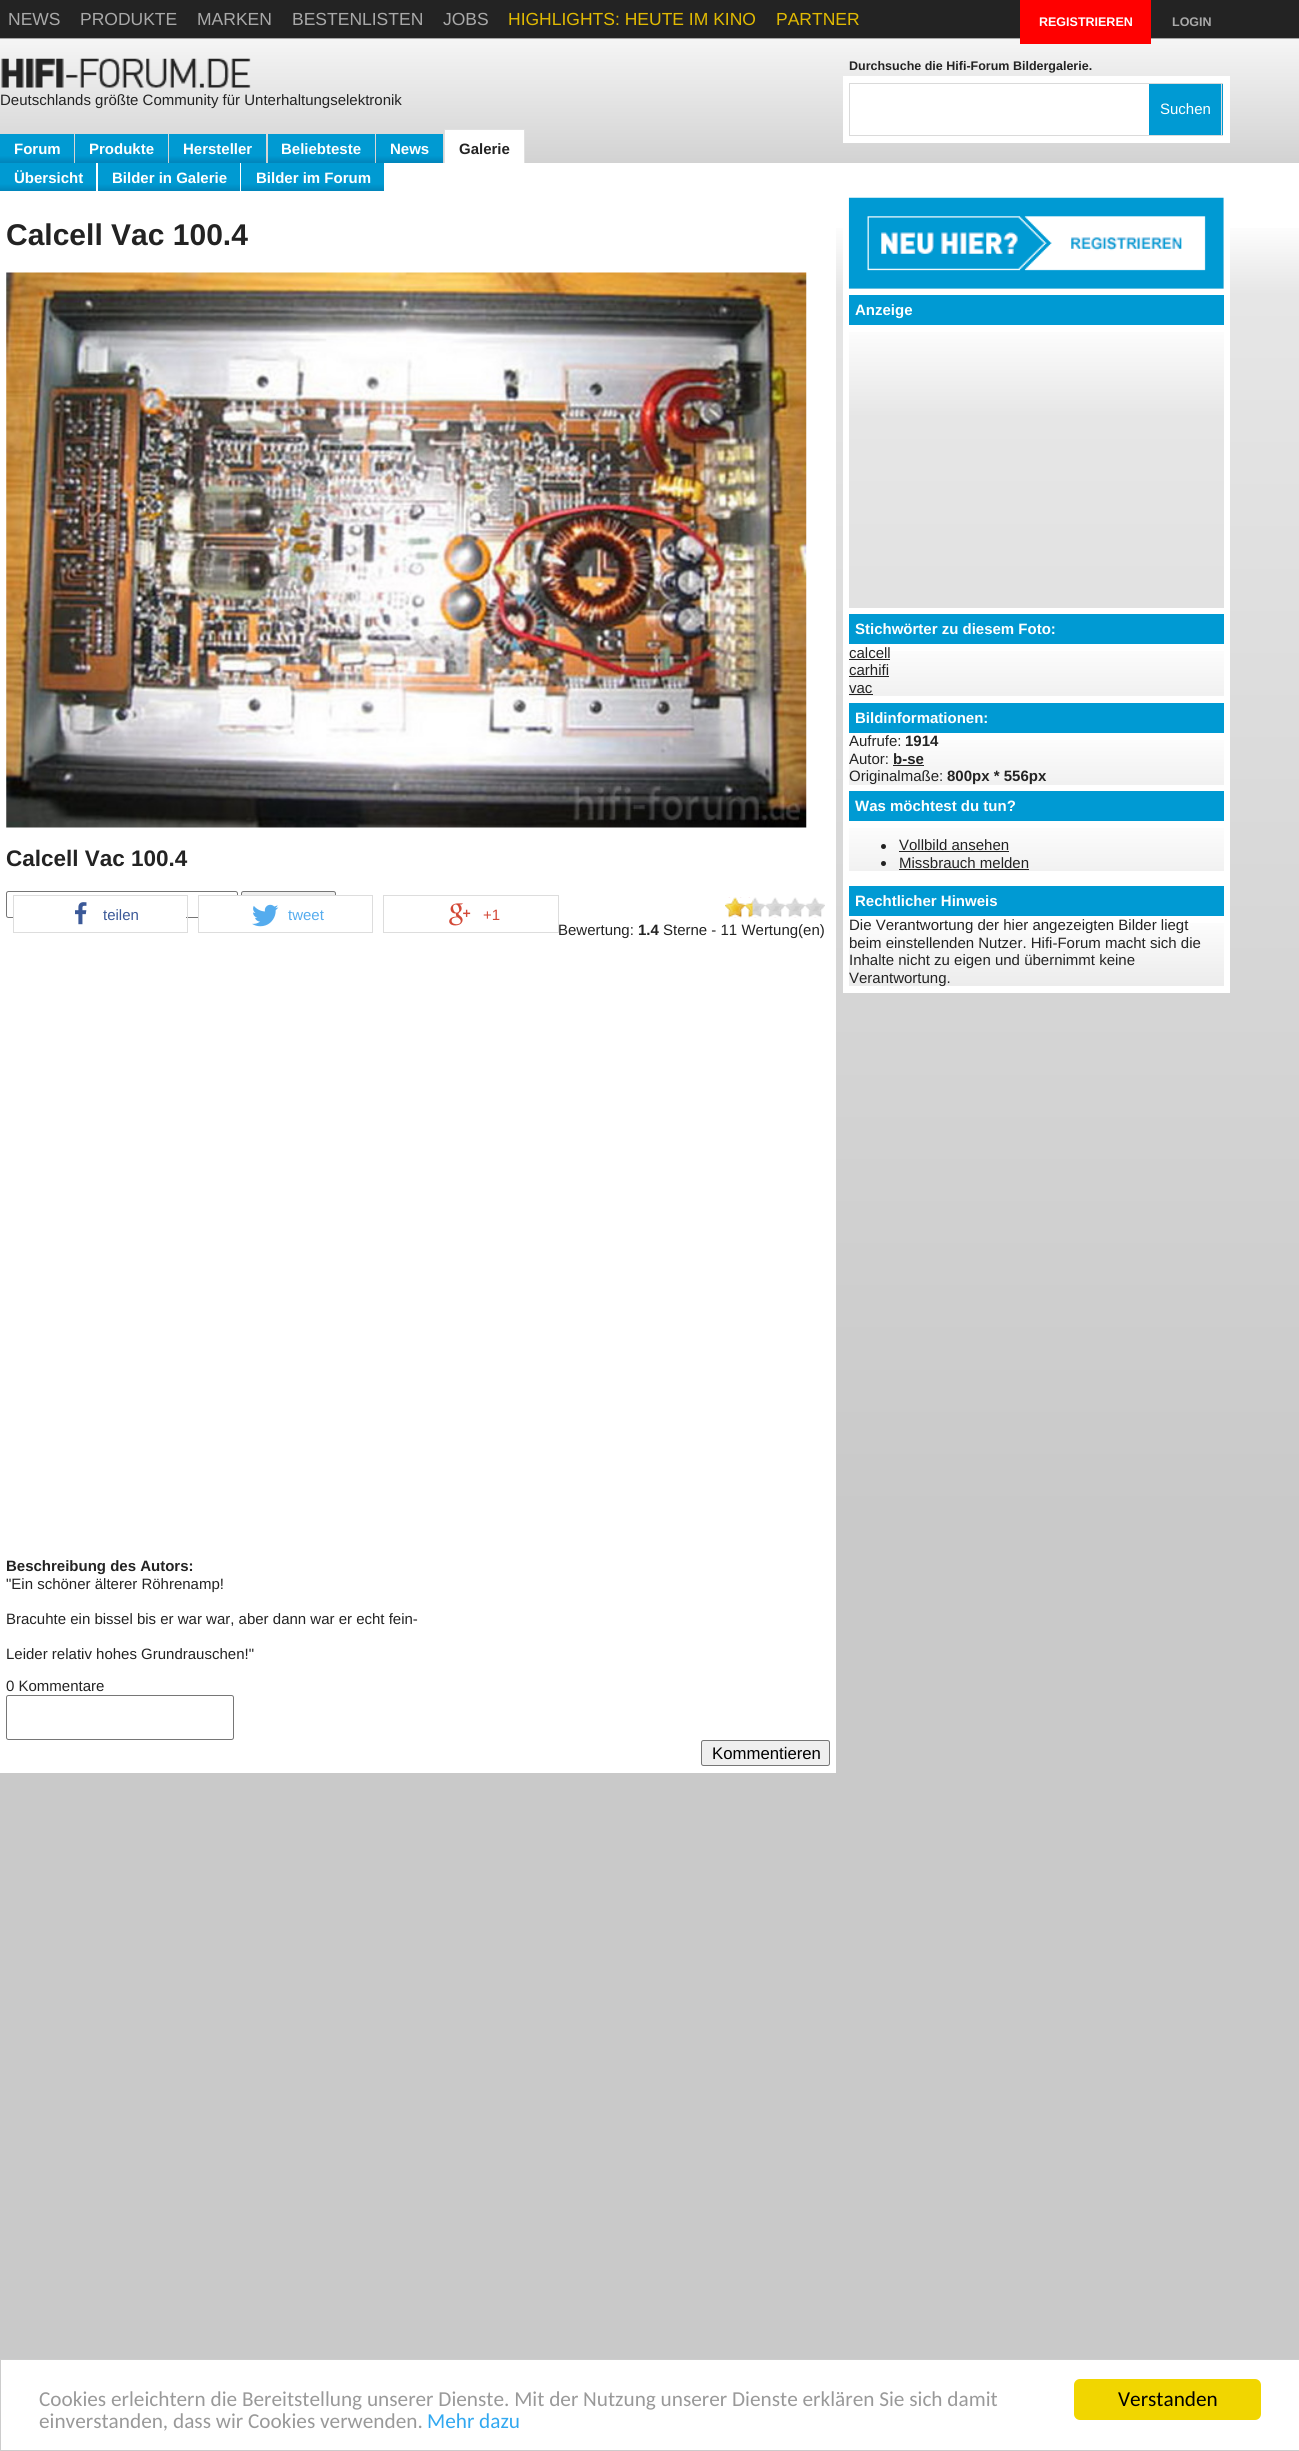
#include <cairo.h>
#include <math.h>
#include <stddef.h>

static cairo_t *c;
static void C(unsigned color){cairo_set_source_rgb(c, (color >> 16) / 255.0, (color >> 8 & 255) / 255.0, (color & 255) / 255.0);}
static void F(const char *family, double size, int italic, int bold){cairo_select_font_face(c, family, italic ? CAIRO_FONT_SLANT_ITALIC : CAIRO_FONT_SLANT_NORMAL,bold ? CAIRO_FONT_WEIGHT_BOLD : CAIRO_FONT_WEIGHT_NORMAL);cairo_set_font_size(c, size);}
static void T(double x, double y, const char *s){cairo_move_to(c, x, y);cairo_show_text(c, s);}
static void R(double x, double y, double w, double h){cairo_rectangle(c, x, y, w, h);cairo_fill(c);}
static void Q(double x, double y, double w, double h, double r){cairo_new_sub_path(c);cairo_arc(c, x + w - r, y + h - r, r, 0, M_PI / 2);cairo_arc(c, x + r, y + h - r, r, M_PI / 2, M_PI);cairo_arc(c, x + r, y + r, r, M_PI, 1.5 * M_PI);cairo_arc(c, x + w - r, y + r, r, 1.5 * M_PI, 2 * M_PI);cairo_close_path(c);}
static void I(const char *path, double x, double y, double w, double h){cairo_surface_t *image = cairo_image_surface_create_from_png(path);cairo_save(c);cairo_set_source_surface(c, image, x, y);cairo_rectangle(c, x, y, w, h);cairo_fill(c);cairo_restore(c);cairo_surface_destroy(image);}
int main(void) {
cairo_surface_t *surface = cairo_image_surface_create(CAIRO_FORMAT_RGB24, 1299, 2451);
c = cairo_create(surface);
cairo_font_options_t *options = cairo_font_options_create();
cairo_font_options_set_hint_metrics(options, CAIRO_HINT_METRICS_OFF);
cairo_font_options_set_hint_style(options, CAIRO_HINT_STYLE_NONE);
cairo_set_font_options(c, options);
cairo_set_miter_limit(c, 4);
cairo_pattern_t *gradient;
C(0xffffff);
cairo_paint(c);
gradient = cairo_pattern_create_linear(650,0,650,2451);
cairo_pattern_add_color_stop_rgba(gradient,.09,1,1,1,1);
cairo_pattern_add_color_stop_rgba(gradient,.12,0.902,0.902,0.902,1);
cairo_pattern_add_color_stop_rgba(gradient,.62,0.788,0.788,0.788,1);
cairo_set_source(c,gradient);
cairo_pattern_destroy(gradient);
R(0,228,1299,2131);
gradient = cairo_pattern_create_linear(650,0,650,163);
cairo_pattern_add_color_stop_rgba(gradient,0,0.137,0.137,0.137,1);
cairo_pattern_add_color_stop_rgba(gradient,.23,0.137,0.137,0.137,1);
cairo_pattern_add_color_stop_rgba(gradient,.24,0.961,0.961,0.961,1);
cairo_pattern_add_color_stop_rgba(gradient,1,0.824,0.824,0.824,1);
cairo_set_source(c,gradient);
cairo_pattern_destroy(gradient);
R(0,0,1299,163);
F("Liberation Sans",17.5,0,0);
C(0xa9a9a9);
T(8,25,"NEWS");
T(80,25,"PRODUKTE");
T(197,25,"MARKEN");
T(292,25,"BESTENLISTEN");
T(443,25,"JOBS");
C(0xe1ba02);
T(508,25,"HIGHLIGHTS: HEUTE IM KINO");
T(776,25,"PARTNER");
C(0xff0000);
R(1020,0,131,44);
F("Liberation Sans",12.5,0,1);
C(0xffffff);
T(1039,26,"REGISTRIEREN");
C(0xa9a9a9);
T(1172,26,"LOGIN");
I("1.png",1,58,250,30);
C(0x232323);
T(849,70,"Durchsuche die Hifi-Forum Bildergalerie.");
C(0xffffff);
R(843,76,387,67);
C(0xdadada);
R(849,83,374,1);
R(849,135,300,1);
R(849,83,1,53);
C(0x009ad3);
R(1149,84,74,51);
C(0xdadada);
R(1221,83,1,53);
R(1149,135,74,1);
F("Liberation Sans",15,0,0);
C(0xffffff);
T(1160,114,"Suchen");
C(0x232323);
T(0,105,"Deutschlands größte Community für Unterhaltungselektronik");
gradient = cairo_pattern_create_linear(37,134,37,163);
cairo_pattern_add_color_stop_rgba(gradient,.74,0,0.604,0.824,1);
cairo_pattern_add_color_stop_rgba(gradient,1,0.004,0.518,0.729,1);
cairo_set_source(c,gradient);
cairo_pattern_destroy(gradient);
R(0,134,74,29);
F("Liberation Sans",15,0,1);
C(0xffffff);
T(14,154,"Forum");
gradient = cairo_pattern_create_linear(121,134,121,163);
cairo_pattern_add_color_stop_rgba(gradient,.74,0,0.604,0.824,1);
cairo_pattern_add_color_stop_rgba(gradient,1,0.004,0.518,0.729,1);
cairo_set_source(c,gradient);
cairo_pattern_destroy(gradient);
R(75,134,93,29);
C(0xffffff);
T(89,154,"Produkte");
gradient = cairo_pattern_create_linear(218,134,218,163);
cairo_pattern_add_color_stop_rgba(gradient,.74,0,0.604,0.824,1);
cairo_pattern_add_color_stop_rgba(gradient,1,0.004,0.518,0.729,1);
cairo_set_source(c,gradient);
cairo_pattern_destroy(gradient);
R(169,134,97,29);
C(0xffffff);
T(183,154,"Hersteller");
gradient = cairo_pattern_create_linear(321,134,321,163);
cairo_pattern_add_color_stop_rgba(gradient,.74,0,0.604,0.824,1);
cairo_pattern_add_color_stop_rgba(gradient,1,0.004,0.518,0.729,1);
cairo_set_source(c,gradient);
cairo_pattern_destroy(gradient);
R(268,134,107,29);
C(0xffffff);
T(281,154,"Beliebteste");
gradient = cairo_pattern_create_linear(409,134,409,163);
cairo_pattern_add_color_stop_rgba(gradient,.74,0,0.604,0.824,1);
cairo_pattern_add_color_stop_rgba(gradient,1,0.004,0.518,0.729,1);
cairo_set_source(c,gradient);
cairo_pattern_destroy(gradient);
R(376,134,67,29);
C(0xffffff);
T(390,154,"News");
R(445,130,79,33);
C(0xe0e0e0);
R(444,129,81,1);
R(524,129,1,34);
R(444,129,1,34);
C(0x232323);
T(459,154,"Galerie");
gradient = cairo_pattern_create_linear(48,163,48,191);
cairo_pattern_add_color_stop_rgba(gradient,.74,0,0.604,0.824,1);
cairo_pattern_add_color_stop_rgba(gradient,1,0.004,0.518,0.729,1);
cairo_set_source(c,gradient);
cairo_pattern_destroy(gradient);
R(0,163,96,28);
C(0xffffff);
T(14,183,"Übersicht");
gradient = cairo_pattern_create_linear(169,163,169,191);
cairo_pattern_add_color_stop_rgba(gradient,.74,0,0.604,0.824,1);
cairo_pattern_add_color_stop_rgba(gradient,1,0.004,0.518,0.729,1);
cairo_set_source(c,gradient);
cairo_pattern_destroy(gradient);
R(98,163,142,28);
C(0xffffff);
T(112,183,"Bilder in Galerie");
gradient = cairo_pattern_create_linear(313,163,313,191);
cairo_pattern_add_color_stop_rgba(gradient,.74,0,0.604,0.824,1);
cairo_pattern_add_color_stop_rgba(gradient,1,0.004,0.518,0.729,1);
cairo_set_source(c,gradient);
cairo_pattern_destroy(gradient);
R(241,163,143,28);
C(0xffffff);
T(256,183,"Bilder im Forum");
R(0,228,836,1545);
F("Liberation Sans",30,0,1);
C(0x232323);
T(6,245,"Calcell Vac 100.4");
I("2.png",6,272,801,556);
F("Liberation Sans",22.5,0,1);
T(6,866,"Calcell Vac 100.4");
Q(6.5,891.5,231,26,2);
C(0x767676);
cairo_set_line_width(c,1);
cairo_stroke(c);
C(0xefefef);
Q(241.5,891.5,94,26,2);
cairo_fill_preserve(c);
C(0x767676);
cairo_stroke(c);
cairo_rectangle(c,13.5,895.5,174,37);
C(0xdddddd);
cairo_stroke(c);
C(0xffffff);
R(14,917,172,1);
I("3.png",75,902,12,23);
F("Liberation Sans",15,0,0);
C(0x3b5998);
T(103,920,"teilen");
cairo_rectangle(c,198.5,895.5,174,37);
C(0xdddddd);
cairo_stroke(c);
C(0xffffff);
R(199,896,137,22);
I("4.png",252,904,27,23);
C(0x55acee);
T(288,920,"tweet");
cairo_rectangle(c,383.5,895.5,175,37);
C(0xdddddd);
cairo_stroke(c);
I("5.png",449,903,22,23);
C(0xd34836);
T(483,920,"+1");
I("6.png",725,897,100,21);
I("7.png",725,897,28,21);
C(0x232323);
T(558,935,"Bewertung:");
F("Liberation Sans",15,0,1);
T(638,935,"1.4");
F("Liberation Sans",15,0,0);
T(663,935,"Sterne - 11 Wertung(en)");
F("Liberation Sans",15,0,1);
T(6,1571,"Beschreibung des Autors:");
F("Liberation Sans",15,0,0);
T(6,1589,"\"Ein schöner älterer Röhrenamp!");
T(6,1624,"Bracuhte ein bissel bis er war war, aber dann war er echt fein-");
T(6,1659,"Leider relativ hohes Grundrauschen!\"");
T(6,1691,"0 Kommentare");
Q(6.5,1695.5,227,44,2);
C(0x767676);
cairo_stroke(c);
C(0xefefef);
Q(701.5,1740.5,128,25,2);
cairo_fill_preserve(c);
C(0x767676);
cairo_stroke(c);
F("Liberation Sans",16.75,0,0);
C(0x000000);
T(712,1759,"Kommentieren");
C(0xffffff);
R(843,228,387,765);
gradient = cairo_pattern_create_linear(1036,197,1036,1554);
cairo_pattern_add_color_stop_rgba(gradient,.02,1,1,1,1);
cairo_pattern_add_color_stop_rgba(gradient,.09,0.902,0.902,0.902,1);
cairo_pattern_add_color_stop_rgba(gradient,1,0.788,0.788,0.788,1);
cairo_set_source(c,gradient);
cairo_pattern_destroy(gradient);
R(849,234,375,55);
I("8.png",848,197,376,92);
gradient = cairo_pattern_create_linear(1036,295,1036,1651);
cairo_pattern_add_color_stop_rgba(gradient,.02,1,1,1,1);
cairo_pattern_add_color_stop_rgba(gradient,.09,0.902,0.902,0.902,1);
cairo_pattern_add_color_stop_rgba(gradient,1,0.788,0.788,0.788,1);
cairo_set_source(c,gradient);
cairo_pattern_destroy(gradient);
R(849,332,375,276);
C(0x009ad3);
R(849,295,375,30);
F("Liberation Sans",15,0,1);
C(0xffffff);
T(855,315,"Anzeige");
gradient = cairo_pattern_create_linear(1036,614,1036,1970);
cairo_pattern_add_color_stop_rgba(gradient,.02,1,1,1,1);
cairo_pattern_add_color_stop_rgba(gradient,.09,0.902,0.902,0.902,1);
cairo_pattern_add_color_stop_rgba(gradient,1,0.788,0.788,0.788,1);
cairo_set_source(c,gradient);
cairo_pattern_destroy(gradient);
R(849,651,375,45);
C(0x009ad3);
R(849,614,375,30);
C(0xffffff);
T(855,634,"Stichwörter zu diesem Foto:");
F("Liberation Sans",15,0,0);
C(0x232323);
T(849,658,"calcell");
R(849,659,41,1);
T(849,675,"carhifi");
R(849,676,40,1);
T(849,693,"vac");
R(849,694,24,1);
gradient = cairo_pattern_create_linear(1036,703,1036,2059);
cairo_pattern_add_color_stop_rgba(gradient,.02,1,1,1,1);
cairo_pattern_add_color_stop_rgba(gradient,.09,0.902,0.902,0.902,1);
cairo_pattern_add_color_stop_rgba(gradient,1,0.788,0.788,0.788,1);
cairo_set_source(c,gradient);
cairo_pattern_destroy(gradient);
R(849,740,375,45);
C(0x009ad3);
R(849,703,375,30);
F("Liberation Sans",15,0,1);
C(0xffffff);
T(855,723,"Bildinformationen:");
F("Liberation Sans",15,0,0);
C(0x232323);
T(849,746,"Aufrufe:");
F("Liberation Sans",15,0,1);
T(905,746,"1914");
F("Liberation Sans",15,0,0);
T(849,764,"Autor:");
F("Liberation Sans",15,0,1);
T(893,764,"b-se");
R(893,765,31,1);
F("Liberation Sans",15,0,0);
T(849,781,"Originalmaße:");
F("Liberation Sans",15,0,1);
T(947,781,"800px * 556px");
gradient = cairo_pattern_create_linear(1036,791,1036,2147);
cairo_pattern_add_color_stop_rgba(gradient,.02,1,1,1,1);
cairo_pattern_add_color_stop_rgba(gradient,.09,0.902,0.902,0.902,1);
cairo_pattern_add_color_stop_rgba(gradient,1,0.788,0.788,0.788,1);
cairo_set_source(c,gradient);
cairo_pattern_destroy(gradient);
R(849,828,375,43);
C(0x009ad3);
R(849,791,375,30);
C(0xffffff);
T(855,811,"Was möchtest du tun?");
C(0x232323);
cairo_new_path(c);
cairo_arc(c,883.5,846.5,2.5,0,2 * M_PI);
cairo_fill(c);
F("Liberation Sans",15,0,0);
T(899,850,"Vollbild ansehen");
R(899,851,110,1);
cairo_new_path(c);
cairo_arc(c,883.5,863.5,2.5,0,2 * M_PI);
cairo_fill(c);
T(899,868,"Missbrauch melden");
R(899,869,130,1);
gradient = cairo_pattern_create_linear(1036,886,1036,2242);
cairo_pattern_add_color_stop_rgba(gradient,.02,1,1,1,1);
cairo_pattern_add_color_stop_rgba(gradient,.09,0.902,0.902,0.902,1);
cairo_pattern_add_color_stop_rgba(gradient,1,0.788,0.788,0.788,1);
cairo_set_source(c,gradient);
cairo_pattern_destroy(gradient);
R(849,923,375,63);
C(0x009ad3);
R(849,886,375,30);
F("Liberation Sans",15,0,1);
C(0xffffff);
T(855,906,"Rechtlicher Hinweis");
F("Liberation Sans",15,0,0);
C(0x232323);
T(849,930,"Die Verantwortung der hier angezeigten Bilder liegt");
T(849,948,"beim einstellenden Nutzer. Hifi-Forum macht sich die");
T(849,965,"Inhalte nicht zu eigen und übernimmt keine");
T(849,983,"Verantwortung.");
cairo_rectangle(c,.5,2359.5,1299,91);
C(0xcccccc);
cairo_stroke(c);
F("Carlito",21.25,0,0);
C(0x999999);
T(39,2406,"Cookies erleichtern die Bereitstellung unserer Dienste. Mit der Nutzung unserer Dienste erklären Sie sich damit");
T(39,2428,"einverstanden, dass wir Cookies verwenden.");
C(0x31a8f0);
T(427,2428,"Mehr dazu");
C(0xf1d600);
Q(1074,2379,187,41,6);
cairo_fill(c);
C(0x000000);
T(1118,2406,"Verstanden");
cairo_surface_write_to_png(surface, "o.png");
cairo_font_options_destroy(options);
cairo_destroy(c);
cairo_surface_destroy(surface);
return 0;
}
